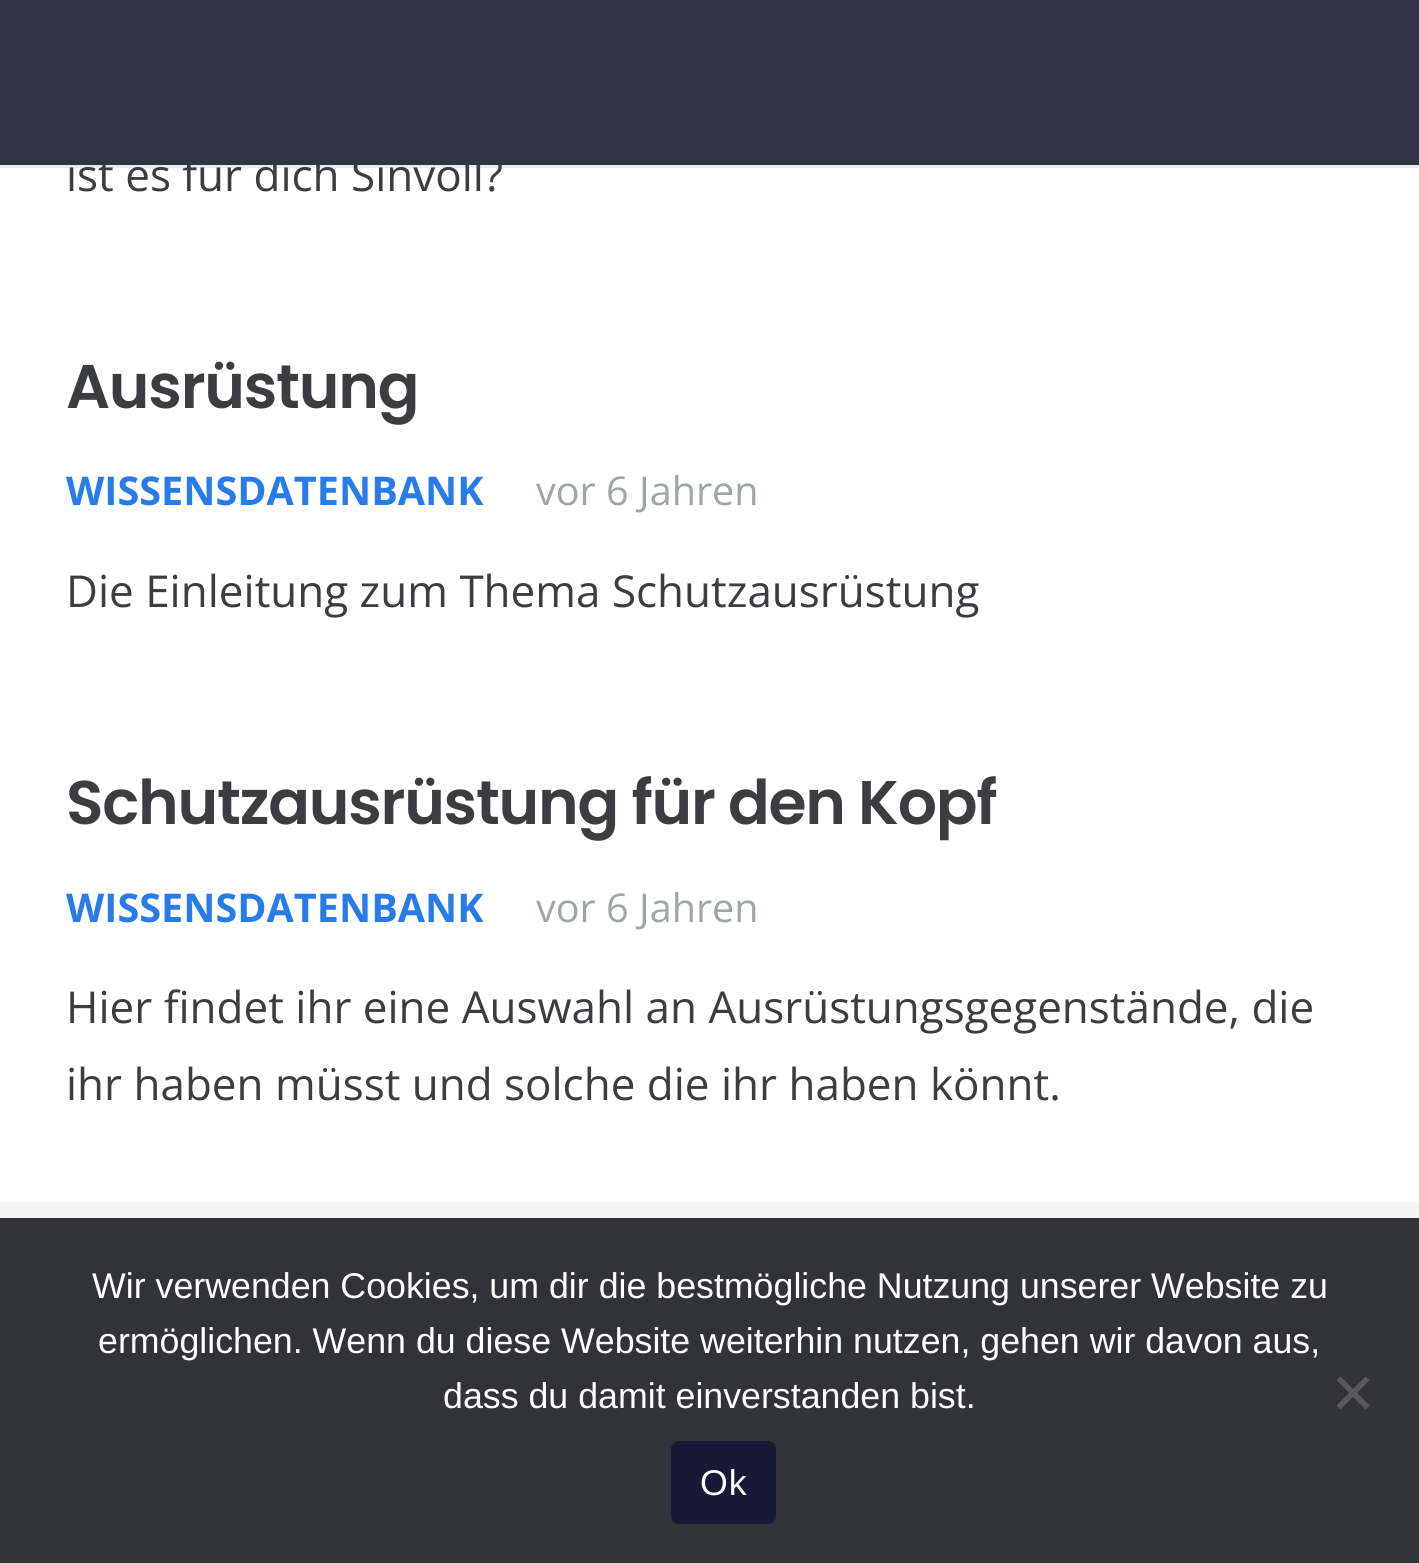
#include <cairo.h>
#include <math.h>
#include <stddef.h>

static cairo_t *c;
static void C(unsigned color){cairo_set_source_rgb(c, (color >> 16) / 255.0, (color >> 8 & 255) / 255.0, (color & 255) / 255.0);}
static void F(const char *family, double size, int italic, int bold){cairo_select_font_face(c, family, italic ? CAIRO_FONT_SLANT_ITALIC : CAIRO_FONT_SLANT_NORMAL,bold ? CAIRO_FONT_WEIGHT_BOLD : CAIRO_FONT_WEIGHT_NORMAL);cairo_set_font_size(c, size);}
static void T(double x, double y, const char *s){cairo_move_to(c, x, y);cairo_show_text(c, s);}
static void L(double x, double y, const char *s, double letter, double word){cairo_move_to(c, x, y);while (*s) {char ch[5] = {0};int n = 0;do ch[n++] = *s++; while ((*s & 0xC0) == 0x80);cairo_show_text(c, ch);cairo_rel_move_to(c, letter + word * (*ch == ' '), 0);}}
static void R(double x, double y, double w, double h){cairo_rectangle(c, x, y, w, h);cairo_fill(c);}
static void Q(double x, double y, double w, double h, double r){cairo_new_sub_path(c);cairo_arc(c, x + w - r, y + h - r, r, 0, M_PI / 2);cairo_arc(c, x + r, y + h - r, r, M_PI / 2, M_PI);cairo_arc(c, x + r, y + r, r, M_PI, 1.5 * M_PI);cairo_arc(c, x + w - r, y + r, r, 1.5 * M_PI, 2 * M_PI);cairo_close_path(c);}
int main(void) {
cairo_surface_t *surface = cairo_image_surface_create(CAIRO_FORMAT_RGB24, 1419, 1563);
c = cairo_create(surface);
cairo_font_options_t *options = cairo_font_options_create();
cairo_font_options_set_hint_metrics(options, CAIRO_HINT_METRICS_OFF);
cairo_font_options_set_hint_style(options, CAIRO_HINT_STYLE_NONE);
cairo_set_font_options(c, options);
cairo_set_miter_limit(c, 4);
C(0xffffff);
cairo_paint(c);
cairo_set_source_rgba(c,0,0,0,0.08);
R(0,165,1419,3);
F("Open Sans",44,0,0);
C(0x3b3d40);
T(66,191,"ist es für dich Sinvoll?");
C(0x303444);
R(0,0,1419,165);
F("Poppins SemiBold",61.6,0,0);
C(0x3b3d40);
L(66,408,"Ausrüstung",-1.25,0);
F("Open Sans",39.6,0,1);
C(0x277cea);
T(66,505,"WISSENSDATENBANK");
F("Open Sans",39.6,0,0);
C(0x9da6a8);
T(536,505,"vor 6 Jahren");
F("Open Sans",44,0,0);
C(0x3b3d40);
T(66,607,"Die Einleitung zum Thema Schutzausrüstung");
F("Poppins SemiBold",61.6,0,0);
L(66,824,"Schutzausrüstung für den Kopf",-1.25,0);
F("Open Sans",39.6,0,1);
C(0x277cea);
T(66,922,"WISSENSDATENBANK");
F("Open Sans",39.6,0,0);
C(0x9da6a8);
T(536,922,"vor 6 Jahren");
F("Open Sans",44,0,0);
C(0x3b3d40);
T(66,1023,"Hier findet ihr eine Auswahl an Ausrüstungsgegenstände, die");
T(66,1100,"ihr haben müsst und solche die ihr haben könnt.");
C(0xf5f5f5);
R(0,1202,1419,16);
C(0x32323a);
R(0,1218,1419,345);
F("Liberation Sans",35.75,0,0);
C(0xffffff);
T(92,1298,"Wir verwenden Cookies, um dir die bestmögliche Nutzung unserer Website zu");
T(98,1353,"ermöglichen. Wenn du diese Website weiterhin nutzen, gehen wir davon aus,");
T(443,1408,"dass du damit einverstanden bist.");
C(0x59595d);
cairo_new_path(c);
cairo_move_to(c,1365.5,1376.5);
cairo_line_to(c,1369.5,1380);
cairo_line_to(c,1340.5,1409.5);
cairo_line_to(c,1336.5,1405.5);
cairo_close_path(c);
cairo_fill(c);
cairo_new_path(c);
cairo_move_to(c,1336.5,1380);
cairo_line_to(c,1340.5,1376.5);
cairo_line_to(c,1369.5,1405.5);
cairo_line_to(c,1365.5,1409.5);
cairo_close_path(c);
cairo_fill(c);
C(0x181936);
Q(671,1441,105,83,8);
cairo_fill(c);
C(0xffffff);
L(700,1495,"Ok",1,0);
cairo_surface_write_to_png(surface, "o.png");
cairo_font_options_destroy(options);
cairo_destroy(c);
cairo_surface_destroy(surface);
return 0;
}
